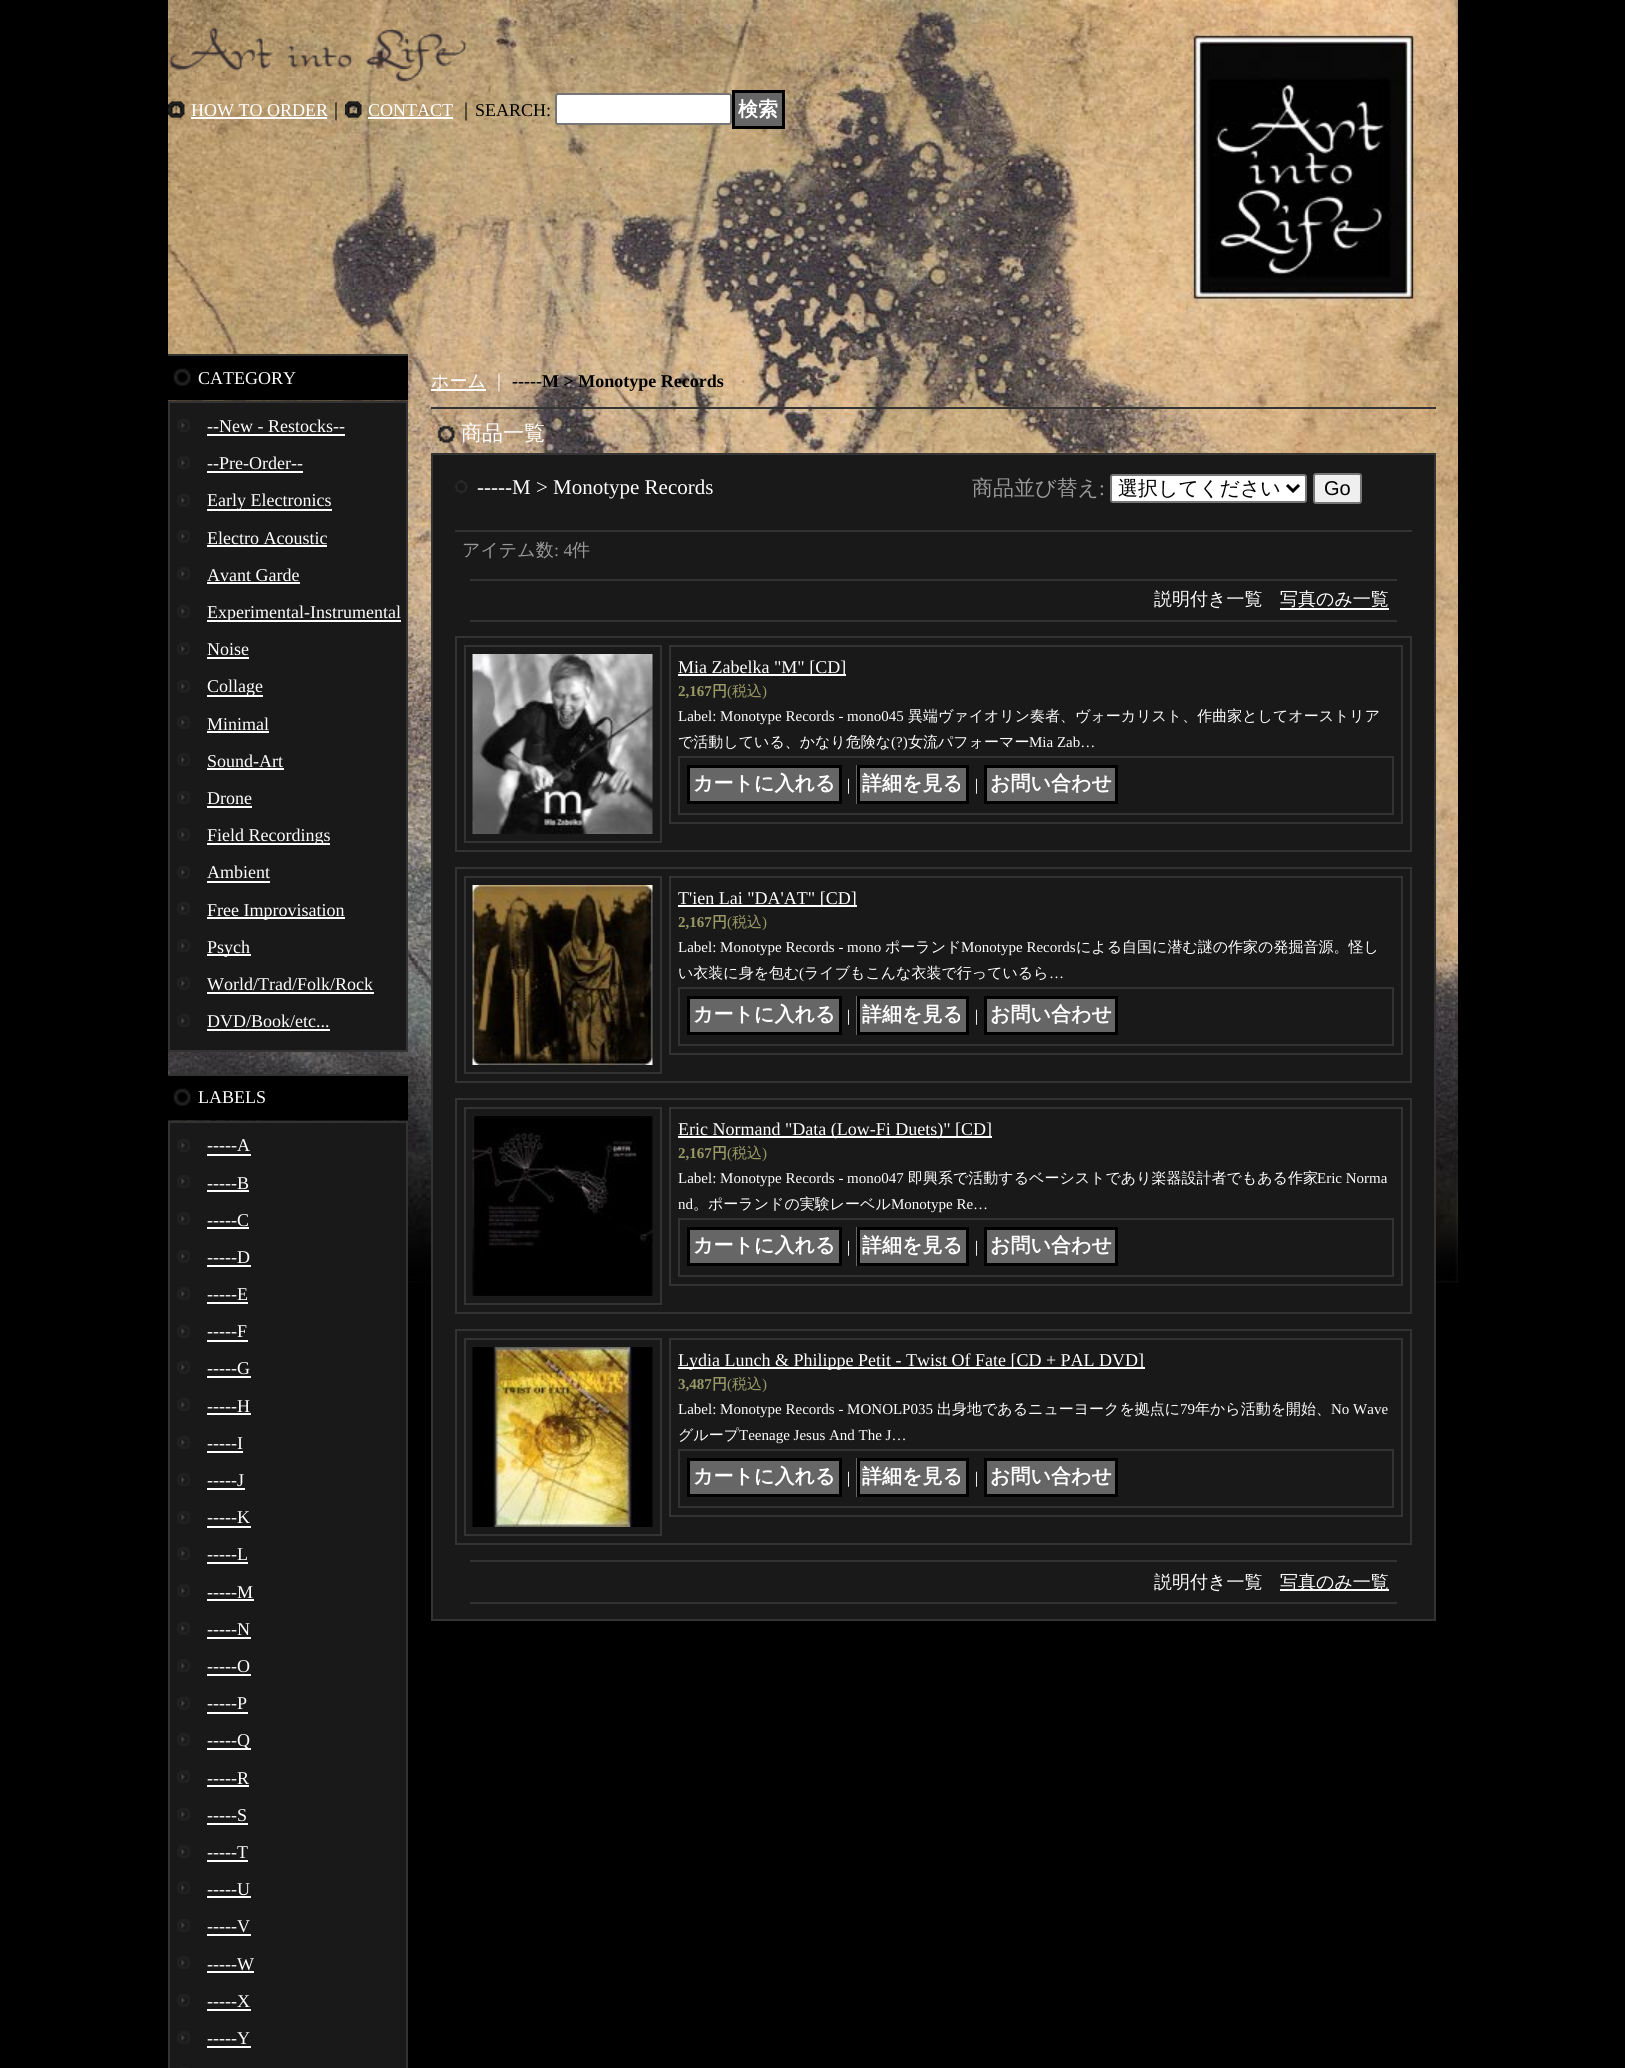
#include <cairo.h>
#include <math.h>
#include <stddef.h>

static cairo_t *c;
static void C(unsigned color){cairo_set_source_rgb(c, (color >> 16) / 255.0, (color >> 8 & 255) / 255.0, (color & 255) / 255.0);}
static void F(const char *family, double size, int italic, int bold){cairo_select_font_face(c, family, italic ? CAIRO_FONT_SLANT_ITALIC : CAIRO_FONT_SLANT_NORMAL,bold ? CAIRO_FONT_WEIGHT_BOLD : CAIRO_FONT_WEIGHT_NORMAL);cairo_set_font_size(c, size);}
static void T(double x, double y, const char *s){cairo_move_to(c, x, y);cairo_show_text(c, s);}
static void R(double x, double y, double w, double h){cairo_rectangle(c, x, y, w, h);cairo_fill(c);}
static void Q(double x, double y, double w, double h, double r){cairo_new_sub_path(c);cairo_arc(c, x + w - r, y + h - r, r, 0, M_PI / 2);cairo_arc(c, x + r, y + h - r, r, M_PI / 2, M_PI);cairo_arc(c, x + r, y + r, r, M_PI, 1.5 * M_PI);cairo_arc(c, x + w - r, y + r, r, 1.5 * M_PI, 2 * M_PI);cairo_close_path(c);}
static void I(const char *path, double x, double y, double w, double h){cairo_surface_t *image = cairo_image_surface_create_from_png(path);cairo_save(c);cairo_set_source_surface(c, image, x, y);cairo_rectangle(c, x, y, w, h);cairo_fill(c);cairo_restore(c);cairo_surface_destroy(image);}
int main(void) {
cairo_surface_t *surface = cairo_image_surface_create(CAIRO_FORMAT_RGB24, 1625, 2068);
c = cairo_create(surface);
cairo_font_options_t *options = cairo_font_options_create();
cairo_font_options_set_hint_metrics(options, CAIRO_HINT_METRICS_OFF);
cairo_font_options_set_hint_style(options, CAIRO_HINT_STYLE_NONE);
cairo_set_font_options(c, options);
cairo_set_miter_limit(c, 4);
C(0x000000);
cairo_paint(c);
I("1.png",168,0,1290,1283);
I("2.png",169,27,298,55);
I("3.png",168,101,17,17);
F("Liberation Serif",18,0,0);
C(0xffffff);
T(191,116,"HOW TO ORDER");
R(191,117,136,2);
F("WenQuanYi Zen Hei Medium",18,0,0);
C(0x000000);
T(327,116,"｜");
I("4.png",345,101,17,17);
F("Liberation Serif",18,0,0);
C(0xffffff);
T(368,116,"CONTACT");
R(368,117,85,2);
F("WenQuanYi Zen Hei Medium",18,0,0);
C(0x000000);
T(457,116,"｜");
F("Liberation Serif",18,0,0);
T(475,116,"SEARCH:");
C(0xffffff);
Q(556,94,175,30,2);
cairo_fill_preserve(c);
C(0x767676);
cairo_stroke(c);
C(0x666666);
cairo_rectangle(c,733.5,91.5,50,36);
cairo_fill_preserve(c);
C(0x000000);
cairo_set_line_width(c,3);
cairo_stroke(c);
F("WenQuanYi Zen Hei",20,0,1);
C(0xffffff);
T(738,116,"検索");
I("5.png",168,356,240,45);
C(0x333333);
R(168,354,240,2);
F("Liberation Serif",18,0,0);
C(0xffffff);
T(198,384,"CATEGORY");
C(0x191919);
cairo_rectangle(c,169,402,238,649);
cairo_fill_preserve(c);
C(0x333333);
cairo_set_line_width(c,2);
cairo_stroke(c);
I("6.png",177,419,13,13);
C(0xffffff);
T(207,432,"--New - Restocks--");
R(207,434,138,2);
I("7.png",177,456,13,13);
T(207,469,"--Pre-Order--");
R(207,471,96,2);
I("6.png",177,494,13,13);
R(207,509,125,2);
T(207,506,"Early Electronics");
I("6.png",177,530,13,13);
T(207,544,"Electro Acoustic");
R(207,545,120,2);
I("7.png",177,567,13,13);
T(207,581,"Avant Garde");
R(207,582,93,2);
I("6.png",177,605,13,13);
R(207,620,194,2);
T(207,618,"Experimental-Instrumental");
I("7.png",177,642,13,13);
T(207,655,"Noise");
R(207,657,42,2);
I("6.png",177,680,13,13);
R(207,695,56,2);
T(207,692,"Collage");
I("6.png",177,716,13,13);
T(207,730,"Minimal");
R(207,731,62,2);
I("7.png",177,753,13,13);
T(207,767,"Sound-Art");
R(207,768,77,2);
I("6.png",177,791,13,13);
T(207,804,"Drone");
R(207,806,45,2);
I("7.png",177,828,13,13);
R(207,843,123,2);
T(207,841,"Field Recordings");
I("6.png",177,866,13,13);
T(207,878,"Ambient");
R(207,881,63,2);
I("6.png",177,902,13,13);
R(207,917,138,2);
T(207,916,"Free Improvisation");
I("7.png",177,939,13,13);
R(207,954,44,2);
T(207,953,"Psych");
I("6.png",177,977,13,13);
T(207,990,"World/Trad/Folk/Rock");
R(207,992,167,2);
I("7.png",177,1014,13,13);
T(207,1027,"DVD/Book/etc...");
R(207,1029,123,2);
I("8.png",168,1076,240,45);
C(0x333333);
R(168,1074,240,2);
C(0xffffff);
T(198,1103,"LABELS");
C(0x191919);
cairo_rectangle(c,169,1122,238,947);
cairo_fill_preserve(c);
C(0x333333);
cairo_stroke(c);
I("6.png",177,1139,13,13);
C(0xffffff);
T(207,1151,"-----A");
R(207,1154,44,2);
I("6.png",177,1175,13,13);
T(207,1189,"-----B");
R(207,1190,42,2);
I("7.png",177,1212,13,13);
T(207,1226,"-----C");
R(207,1227,42,2);
I("6.png",177,1250,13,13);
T(207,1263,"-----D");
R(207,1265,44,2);
I("7.png",177,1287,13,13);
T(207,1300,"-----E");
R(207,1302,41,2);
I("6.png",177,1325,13,13);
T(207,1337,"-----F");
R(207,1340,41,2);
I("6.png",177,1361,13,13);
T(207,1374,"-----G");
R(207,1376,44,2);
I("7.png",177,1398,13,13);
T(207,1412,"-----H");
R(207,1413,44,2);
I("6.png",177,1436,13,13);
T(207,1449,"-----I");
R(207,1451,36,2);
I("7.png",177,1473,13,13);
T(207,1486,"-----J");
R(207,1488,38,2);
I("6.png",177,1511,13,13);
T(207,1523,"-----K");
R(207,1526,44,2);
I("6.png",177,1547,13,13);
T(207,1560,"-----L");
R(207,1562,41,2);
I("7.png",177,1584,13,13);
T(207,1598,"-----M");
R(207,1599,47,2);
I("6.png",177,1622,13,13);
T(207,1635,"-----N");
R(207,1637,44,2);
I("7.png",177,1659,13,13);
T(207,1672,"-----O");
R(207,1674,44,2);
I("6.png",177,1697,13,13);
T(207,1709,"-----P");
R(207,1712,41,2);
I("6.png",177,1733,13,13);
R(207,1748,44,2);
T(207,1746,"-----Q");
I("7.png",177,1770,13,13);
T(207,1784,"-----R");
R(207,1785,42,2);
I("6.png",177,1808,13,13);
T(207,1821,"-----S");
R(207,1823,41,2);
I("7.png",177,1845,13,13);
T(207,1858,"-----T");
R(207,1860,41,2);
I("7.png",177,1881,13,13);
T(207,1895,"-----U");
R(207,1896,44,2);
I("6.png",177,1919,13,13);
T(207,1932,"-----V");
R(207,1934,44,2);
I("7.png",177,1956,13,13);
T(207,1970,"-----W");
R(207,1971,47,2);
I("6.png",177,1994,13,13);
T(207,2007,"-----X");
R(207,2009,44,2);
I("7.png",177,2031,13,13);
T(207,2044,"-----Y");
R(207,2046,44,2);
C(0x1f1f1f);
R(180,2067,7,1);
F("WenQuanYi Zen Hei Medium",18,0,0);
C(0xffffff);
T(431,387,"ホーム");
R(431,389,55,2);
T(490,387,"｜");
F("Liberation Serif",18,0,1);
C(0x000000);
T(512,387,"-----M > Monotype Records");
I("9.png",437,425,18,18);
C(0x333333);
R(431,407,1005,2);
F("WenQuanYi Zen Hei Medium",21,0,0);
C(0xffffff);
T(461,440,"商品一覧");
C(0x191919);
R(433,455,1001,1164);
C(0x333333);
R(431,453,1005,2);
R(1434,453,2,1167);
R(431,453,2,1151);
I("10.png",454,480,14,14);
F("Liberation Serif",21,0,0);
C(0xffffff);
T(477,494,"-----M > Monotype Records");
F("WenQuanYi Zen Hei Medium",21,0,0);
C(0x999999);
T(972,495,"商品並び替え");
F("Liberation Serif",21,0,0);
T(1099,495,":");
C(0xffffff);
Q(1111,475,195,27,2);
cairo_fill_preserve(c);
C(0x767676);
cairo_stroke(c);
cairo_new_path(c);
cairo_move_to(c,1287,485);
cairo_line_to(c,1293,491);
cairo_line_to(c,1299,485);
C(0x000000);
cairo_set_line_width(c,3);
cairo_stroke(c);
F("WenQuanYi Zen Hei Medium",20,0,0);
T(1118,495,"選択してください");
C(0xefefef);
Q(1314,474,47,29,2);
cairo_fill_preserve(c);
C(0x767676);
cairo_set_line_width(c,2);
cairo_stroke(c);
F("Liberation Sans",20,0,0);
C(0x000000);
T(1324,495,"Go");
C(0x333333);
R(455,530,957,2);
F("WenQuanYi Zen Hei Medium",18,0,0);
C(0x999999);
T(462,556,"アイテム数");
F("Liberation Serif",18,0,0);
T(554,556,": 4");
F("WenQuanYi Zen Hei Medium",18,0,0);
T(572,556,"件");
C(0x333333);
R(470,579,927,2);
R(470,620,927,2);
C(0xffffff);
T(1154,605,"説明付き一覧");
T(1280,605,"写真のみ一覧");
R(1280,608,109,2);
cairo_rectangle(c,456,637,955,214);
C(0x333333);
cairo_stroke(c);
cairo_rectangle(c,465,646,196,196);
cairo_stroke(c);
I("11.png",472,654,181,180);
cairo_rectangle(c,670,646,732,177);
cairo_stroke(c);
C(0xffffff);
R(678,674,168,2);
F("Liberation Serif",18,0,0);
T(678,673,"Mia Zabelka \"M\" [CD]");
F("Liberation Serif",15,0,1);
C(0x999966);
T(678,696,"2,167");
F("WenQuanYi Zen Hei",15,0,1);
T(712,696,"円");
F("Liberation Serif",15,0,0);
T(727,696,"(");
F("WenQuanYi Zen Hei Medium",15,0,0);
T(732,696,"税込");
F("Liberation Serif",15,0,0);
T(762,696,")");
C(0xffffff);
T(678,721,"Label: Monotype Records - mono045");
F("WenQuanYi Zen Hei Medium",15,0,0);
T(908,721,"異端ヴァイオリン奏者、ヴォーカリスト、作曲家としてオーストリア");
T(678,747,"で活動している、かなり危険な");
F("Liberation Serif",15,0,0);
T(891,747,"(?)");
F("WenQuanYi Zen Hei Medium",15,0,0);
T(908,747,"女流パフォーマー");
F("Liberation Serif",15,0,0);
T(1029,747,"Mia Zab…");
cairo_rectangle(c,679,757,714,57);
C(0x333333);
cairo_stroke(c);
C(0x666666);
cairo_rectangle(c,688.5,766.5,152,36);
cairo_fill_preserve(c);
C(0x000000);
cairo_set_line_width(c,3);
cairo_stroke(c);
F("WenQuanYi Zen Hei",20,0,1);
C(0xffffff);
T(693,790,"カートに入れる");
F("WenQuanYi Zen Hei Medium",15,0,0);
T(841,790,"｜");
C(0x666666);
R(856,765,110,39);
cairo_rectangle(c,858.5,766.5,109,36);
C(0x000000);
cairo_stroke(c);
F("WenQuanYi Zen Hei",20,0,1);
C(0xffffff);
T(862,790,"詳細を見る");
F("WenQuanYi Zen Hei Medium",15,0,0);
T(969,790,"｜");
C(0x666666);
cairo_rectangle(c,985.5,766.5,131,36);
cairo_fill_preserve(c);
C(0x000000);
cairo_stroke(c);
F("WenQuanYi Zen Hei",20,0,1);
C(0xffffff);
T(990,790,"お問い合わせ");
cairo_rectangle(c,456,868,955,214);
C(0x333333);
cairo_set_line_width(c,2);
cairo_stroke(c);
cairo_rectangle(c,465,877,196,196);
cairo_stroke(c);
I("12.png",472,885,181,180);
cairo_rectangle(c,670,877,732,177);
cairo_stroke(c);
C(0xffffff);
R(678,905,179,2);
F("Liberation Serif",18,0,0);
T(678,904,"T'ien Lai \"DA'AT\" [CD]");
F("Liberation Serif",15,0,1);
C(0x999966);
T(678,927,"2,167");
F("WenQuanYi Zen Hei",15,0,1);
T(712,927,"円");
F("Liberation Serif",15,0,0);
T(727,927,"(");
F("WenQuanYi Zen Hei Medium",15,0,0);
T(732,927,"税込");
F("Liberation Serif",15,0,0);
T(762,927,")");
C(0xffffff);
T(678,952,"Label: Monotype Records - mono");
F("WenQuanYi Zen Hei Medium",15,0,0);
T(885,952,"ポーランド");
F("Liberation Serif",15,0,0);
T(961,952,"Monotype Records");
F("WenQuanYi Zen Hei Medium",15,0,0);
T(1076,952,"による自国に潜む謎の作家の発掘音源。怪し");
T(678,978,"い衣装に身を包む");
F("Liberation Serif",15,0,0);
T(799,978,"(");
F("WenQuanYi Zen Hei Medium",15,0,0);
T(804,978,"ライブもこんな衣装で行っているら");
F("Liberation Serif",15,0,0);
T(1049,978,"…");
cairo_rectangle(c,679,988,714,57);
C(0x333333);
cairo_stroke(c);
C(0x666666);
cairo_rectangle(c,688.5,997.5,152,36);
cairo_fill_preserve(c);
C(0x000000);
cairo_set_line_width(c,3);
cairo_stroke(c);
F("WenQuanYi Zen Hei",20,0,1);
C(0xffffff);
T(693,1021,"カートに入れる");
F("WenQuanYi Zen Hei Medium",15,0,0);
T(841,1021,"｜");
C(0x666666);
R(856,996,110,39);
cairo_rectangle(c,858.5,997.5,109,36);
C(0x000000);
cairo_stroke(c);
F("WenQuanYi Zen Hei",20,0,1);
C(0xffffff);
T(862,1021,"詳細を見る");
F("WenQuanYi Zen Hei Medium",15,0,0);
T(969,1021,"｜");
C(0x666666);
cairo_rectangle(c,985.5,997.5,131,36);
cairo_fill_preserve(c);
C(0x000000);
cairo_stroke(c);
F("WenQuanYi Zen Hei",20,0,1);
C(0xffffff);
T(990,1021,"お問い合わせ");
cairo_rectangle(c,456,1099,955,214);
C(0x333333);
cairo_set_line_width(c,2);
cairo_stroke(c);
cairo_rectangle(c,465,1108,196,196);
cairo_stroke(c);
I("13.png",472,1116,181,180);
cairo_rectangle(c,670,1108,732,177);
cairo_stroke(c);
C(0xffffff);
R(678,1136,314,2);
F("Liberation Serif",18,0,0);
T(678,1135,"Eric Normand \"Data (Low-Fi Duets)\" [CD]");
F("Liberation Serif",15,0,1);
C(0x999966);
T(678,1158,"2,167");
F("WenQuanYi Zen Hei",15,0,1);
T(712,1158,"円");
F("Liberation Serif",15,0,0);
T(727,1158,"(");
F("WenQuanYi Zen Hei Medium",15,0,0);
T(732,1158,"税込");
F("Liberation Serif",15,0,0);
T(762,1158,")");
C(0xffffff);
T(678,1183,"Label: Monotype Records - mono047");
F("WenQuanYi Zen Hei Medium",15,0,0);
T(908,1183,"即興系で活動するベーシストであり楽器設計者でもある作家");
F("Liberation Serif",15,0,0);
T(1317,1183,"Eric Norma");
T(678,1209,"nd");
F("WenQuanYi Zen Hei Medium",15,0,0);
T(693,1209,"。ポーランドの実験レーベル");
F("Liberation Serif",15,0,0);
T(891,1209,"Monotype Re…");
cairo_rectangle(c,679,1219,714,57);
C(0x333333);
cairo_stroke(c);
C(0x666666);
cairo_rectangle(c,688.5,1228.5,152,36);
cairo_fill_preserve(c);
C(0x000000);
cairo_set_line_width(c,3);
cairo_stroke(c);
F("WenQuanYi Zen Hei",20,0,1);
C(0xffffff);
T(693,1252,"カートに入れる");
F("WenQuanYi Zen Hei Medium",15,0,0);
T(841,1252,"｜");
C(0x666666);
R(856,1227,110,39);
cairo_rectangle(c,858.5,1228.5,109,36);
C(0x000000);
cairo_stroke(c);
F("WenQuanYi Zen Hei",20,0,1);
C(0xffffff);
T(862,1252,"詳細を見る");
F("WenQuanYi Zen Hei Medium",15,0,0);
T(969,1252,"｜");
C(0x666666);
cairo_rectangle(c,985.5,1228.5,131,36);
cairo_fill_preserve(c);
C(0x000000);
cairo_stroke(c);
F("WenQuanYi Zen Hei",20,0,1);
C(0xffffff);
T(990,1252,"お問い合わせ");
cairo_rectangle(c,456,1330,955,214);
C(0x333333);
cairo_set_line_width(c,2);
cairo_stroke(c);
cairo_rectangle(c,465,1339,196,196);
cairo_stroke(c);
I("14.png",472,1347,181,180);
cairo_rectangle(c,670,1339,732,177);
cairo_stroke(c);
C(0xffffff);
R(678,1367,467,2);
F("Liberation Serif",18,0,0);
T(678,1366,"Lydia Lunch & Philippe Petit - Twist Of Fate [CD + PAL DVD]");
F("Liberation Serif",15,0,1);
C(0x999966);
T(678,1389,"3,487");
F("WenQuanYi Zen Hei",15,0,1);
T(712,1389,"円");
F("Liberation Serif",15,0,0);
T(727,1389,"(");
F("WenQuanYi Zen Hei Medium",15,0,0);
T(732,1389,"税込");
F("Liberation Serif",15,0,0);
T(762,1389,")");
C(0xffffff);
T(678,1414,"Label: Monotype Records - MONOLP035");
F("WenQuanYi Zen Hei Medium",15,0,0);
T(937,1414,"出身地であるニューヨークを拠点に");
F("Liberation Serif",15,0,0);
T(1180,1414,"79");
F("WenQuanYi Zen Hei Medium",15,0,0);
T(1195,1414,"年から活動を開始、");
F("Liberation Serif",15,0,0);
T(1331,1414,"No Wave");
F("WenQuanYi Zen Hei Medium",15,0,0);
T(678,1440,"グループ");
F("Liberation Serif",15,0,0);
T(739,1440,"Teenage Jesus And The J…");
cairo_rectangle(c,679,1450,714,57);
C(0x333333);
cairo_stroke(c);
C(0x666666);
cairo_rectangle(c,688.5,1459.5,152,36);
cairo_fill_preserve(c);
C(0x000000);
cairo_set_line_width(c,3);
cairo_stroke(c);
F("WenQuanYi Zen Hei",20,0,1);
C(0xffffff);
T(693,1483,"カートに入れる");
F("WenQuanYi Zen Hei Medium",15,0,0);
T(841,1483,"｜");
C(0x666666);
R(856,1458,110,39);
cairo_rectangle(c,858.5,1459.5,109,36);
C(0x000000);
cairo_stroke(c);
F("WenQuanYi Zen Hei",20,0,1);
C(0xffffff);
T(862,1483,"詳細を見る");
F("WenQuanYi Zen Hei Medium",15,0,0);
T(969,1483,"｜");
C(0x666666);
cairo_rectangle(c,985.5,1459.5,131,36);
cairo_fill_preserve(c);
C(0x000000);
cairo_stroke(c);
F("WenQuanYi Zen Hei",20,0,1);
C(0xffffff);
T(990,1483,"お問い合わせ");
C(0x333333);
R(470,1560,927,2);
R(470,1602,927,2);
F("WenQuanYi Zen Hei Medium",18,0,0);
C(0xffffff);
T(1154,1588,"説明付き一覧");
R(1280,1589,109,2);
T(1280,1588,"写真のみ一覧");
C(0x333333);
R(431,1619,1005,2);
R(431,1604,2,16);
cairo_surface_write_to_png(surface, "o.png");
cairo_font_options_destroy(options);
cairo_destroy(c);
cairo_surface_destroy(surface);
return 0;
}
